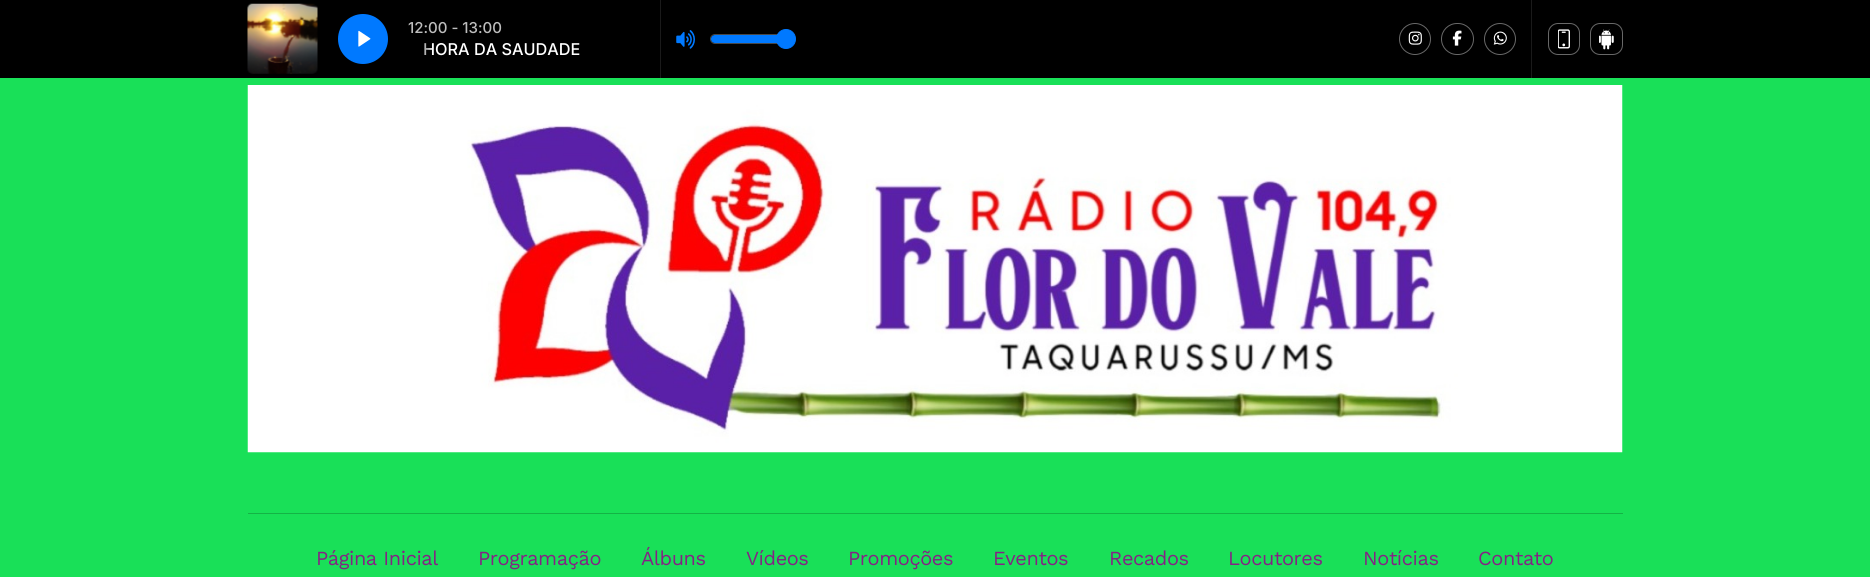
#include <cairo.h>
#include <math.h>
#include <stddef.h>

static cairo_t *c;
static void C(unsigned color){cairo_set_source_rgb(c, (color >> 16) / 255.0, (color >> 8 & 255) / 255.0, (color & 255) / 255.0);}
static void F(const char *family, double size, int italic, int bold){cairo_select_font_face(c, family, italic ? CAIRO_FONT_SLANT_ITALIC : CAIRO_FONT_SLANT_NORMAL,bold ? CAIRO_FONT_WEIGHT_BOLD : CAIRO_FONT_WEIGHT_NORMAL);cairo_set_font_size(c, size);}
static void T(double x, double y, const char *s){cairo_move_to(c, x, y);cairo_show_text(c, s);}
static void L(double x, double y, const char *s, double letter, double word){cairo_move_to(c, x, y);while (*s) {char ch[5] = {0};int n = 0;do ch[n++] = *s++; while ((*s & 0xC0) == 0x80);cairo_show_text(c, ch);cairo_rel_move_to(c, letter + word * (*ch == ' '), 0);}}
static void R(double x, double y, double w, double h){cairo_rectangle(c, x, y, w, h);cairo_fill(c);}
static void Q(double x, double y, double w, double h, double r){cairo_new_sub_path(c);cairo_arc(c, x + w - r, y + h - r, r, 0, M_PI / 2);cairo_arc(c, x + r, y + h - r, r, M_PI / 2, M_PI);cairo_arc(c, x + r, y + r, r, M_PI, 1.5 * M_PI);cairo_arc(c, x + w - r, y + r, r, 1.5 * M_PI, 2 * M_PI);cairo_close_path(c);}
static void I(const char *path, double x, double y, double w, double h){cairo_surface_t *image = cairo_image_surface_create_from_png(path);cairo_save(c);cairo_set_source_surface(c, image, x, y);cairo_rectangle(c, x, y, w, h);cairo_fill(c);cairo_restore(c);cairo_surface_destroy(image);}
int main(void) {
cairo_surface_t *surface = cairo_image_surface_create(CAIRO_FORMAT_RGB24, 1870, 577);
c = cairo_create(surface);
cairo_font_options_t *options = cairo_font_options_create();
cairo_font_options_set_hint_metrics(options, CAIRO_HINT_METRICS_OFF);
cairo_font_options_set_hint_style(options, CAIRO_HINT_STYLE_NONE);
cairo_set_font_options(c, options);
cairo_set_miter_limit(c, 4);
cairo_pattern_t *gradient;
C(0x19e058);
cairo_paint(c);
C(0x000000);
R(0,0,1870,78);
C(0x1a1a1a);
R(660,0,1,78);
I("1.png",247,3,71,71);
C(0x0079ff);
cairo_arc(c,363,39,25,0,2 * M_PI);
cairo_fill(c);
I("2.png",358,30,13,17);
F("Inter Medium",15,0,0);
C(0xbdbdbd);
T(408,33,"12:00 - 13:00");
F("Inter Medium",16.25,0,0);
C(0xffffff);
T(423,55,"HORA DA SAUDADE");
gradient = cairo_pattern_create_linear(408,49,431,49);
cairo_pattern_add_color_stop_rgba(gradient,.2,0,0,0,1);
cairo_pattern_add_color_stop_rgba(gradient,1,0,0,0,0);
cairo_set_source(c,gradient);
cairo_pattern_destroy(gradient);
R(424,43,7,12);
I("3.png",676,30,19,19);
Q(710.5,34.5,77,9,4.5);
C(0x474747);
cairo_set_line_width(c,1);
cairo_stroke(c);
C(0x0079ff);
Q(711,35,75,8,4);
cairo_fill(c);
cairo_arc(c,786,39,9.5,0,2 * M_PI);
cairo_fill_preserve(c);
cairo_stroke(c);
cairo_arc(c,1415,39,15.5,0,2 * M_PI);
C(0x686868);
cairo_stroke(c);
I("4.png",1408,31,14,14);
Q(1441.5,23.5,32,31,15.5);
cairo_stroke(c);
I("5.png",1452,30,10,16);
cairo_arc(c,1500,39,15.5,0,2 * M_PI);
cairo_stroke(c);
I("6.png",1493,31,14,14);
C(0x1a1a1a);
R(1531,0,1,78);
Q(1548.5,23.5,31,31,9.5);
C(0x686868);
cairo_stroke(c);
I("7.png",1558,29,12,20);
Q(1590.5,23.5,32,31,9.5);
cairo_stroke(c);
I("8.png",1599,29,15,21);
I("9.png",247,85,1376,368);
C(0x14b346);
R(248,513,1375,1);
F("Work Sans",20,0,0);
C(0x852285);
L(316,565,"Página Inicial",-.4,0);
L(478,565,"Programação",-.4,0);
L(641,565,"Álbuns",-.4,0);
L(746,565,"Vídeos",-.4,0);
L(848,565,"Promoções",-.4,0);
L(993,565,"Eventos",-.4,0);
L(1109,565,"Recados",-.4,0);
L(1228,565,"Locutores",-.4,0);
L(1363,565,"Notícias",-.4,0);
L(1478,565,"Contato",-.4,0);
cairo_surface_write_to_png(surface, "o.png");
cairo_font_options_destroy(options);
cairo_destroy(c);
cairo_surface_destroy(surface);
return 0;
}
